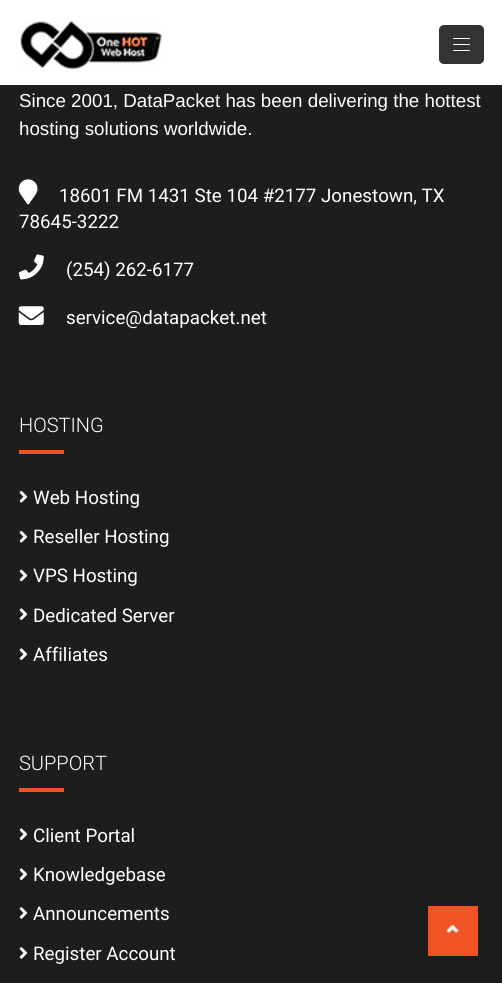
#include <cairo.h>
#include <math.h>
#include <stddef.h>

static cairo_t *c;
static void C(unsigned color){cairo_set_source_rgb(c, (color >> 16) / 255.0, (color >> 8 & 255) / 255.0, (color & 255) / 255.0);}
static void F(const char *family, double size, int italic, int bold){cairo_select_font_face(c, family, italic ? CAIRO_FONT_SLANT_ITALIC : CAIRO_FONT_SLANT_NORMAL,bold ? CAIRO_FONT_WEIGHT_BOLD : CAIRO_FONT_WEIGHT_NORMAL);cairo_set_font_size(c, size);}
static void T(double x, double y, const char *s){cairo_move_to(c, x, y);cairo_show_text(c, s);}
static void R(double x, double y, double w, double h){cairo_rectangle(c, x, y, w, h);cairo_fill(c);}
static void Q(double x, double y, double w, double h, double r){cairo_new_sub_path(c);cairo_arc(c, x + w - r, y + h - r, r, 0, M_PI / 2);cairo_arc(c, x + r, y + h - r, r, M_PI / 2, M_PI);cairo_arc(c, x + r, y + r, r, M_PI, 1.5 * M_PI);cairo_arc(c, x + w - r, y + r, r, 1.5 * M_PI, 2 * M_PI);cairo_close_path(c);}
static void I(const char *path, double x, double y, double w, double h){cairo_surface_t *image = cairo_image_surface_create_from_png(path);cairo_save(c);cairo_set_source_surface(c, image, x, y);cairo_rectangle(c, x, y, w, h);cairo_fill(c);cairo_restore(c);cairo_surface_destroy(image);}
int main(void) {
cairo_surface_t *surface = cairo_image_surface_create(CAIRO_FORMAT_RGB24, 502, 983);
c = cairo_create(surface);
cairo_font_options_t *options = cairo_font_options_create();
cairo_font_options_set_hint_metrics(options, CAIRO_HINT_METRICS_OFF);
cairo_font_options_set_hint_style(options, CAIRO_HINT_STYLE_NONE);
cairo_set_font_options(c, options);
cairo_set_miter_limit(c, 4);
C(0x1d1d1d);
cairo_paint(c);
C(0xffffff);
R(0,0,502,85);
I("1.png",20,21,143,48);
C(0x333333);
Q(439.5,25.5,44,38,4.5);
cairo_fill_preserve(c);
cairo_set_line_width(c,1);
cairo_stroke(c);
C(0xffffff);
Q(453,38,17,1,.5);
cairo_fill(c);
Q(453,44,17,1,.5);
cairo_fill(c);
Q(453,50,17,1,.5);
cairo_fill(c);
F("Liberation Sans",18.75,0,0);
T(19,107,"Since 2001, DataPacket has been delivering the hottest");
T(19,135,"hosting solutions worldwide.");
I("2.png",18,179,20,26);
F("Roboto",18.75,0,0);
T(59,202,"18601 FM 1431 Ste 104 #2177 Jonestown, TX");
T(19,228,"78645-3222");
I("3.png",18,254,26,26);
T(66,276,"(254) 262-6177");
I("4.png",18,306,26,19);
T(66,324,"service@datapacket.net");
F("Roboto Light",20,0,0);
T(19,432,"HOSTING");
C(0xf05424);
R(19,450,45,4);
I("5.png",19,490,9,13);
F("Roboto",18.75,0,0);
C(0xffffff);
T(33,504,"Web Hosting");
I("5.png",19,530,9,13);
T(33,543,"Reseller Hosting");
I("6.png",19,569,9,13);
T(33,582,"VPS Hosting");
I("7.png",19,608,9,12);
T(33,622,"Dedicated Server");
I("7.png",19,648,9,12);
T(33,661,"Affiliates");
F("Roboto Light",20,0,0);
T(19,770,"SUPPORT");
C(0xf05424);
R(19,788,45,4);
I("7.png",19,828,9,12);
F("Roboto",18.75,0,0);
C(0xffffff);
T(33,842,"Client Portal");
I("7.png",19,868,9,12);
T(33,881,"Knowledgebase");
I("8.png",19,907,9,12);
T(33,920,"Announcements");
I("8.png",19,947,9,12);
T(33,960,"Register Account");
C(0xf05424);
R(428,906,50,50);
I("9.png",446,924,13,9);
cairo_surface_write_to_png(surface, "o.png");
cairo_font_options_destroy(options);
cairo_destroy(c);
cairo_surface_destroy(surface);
return 0;
}
